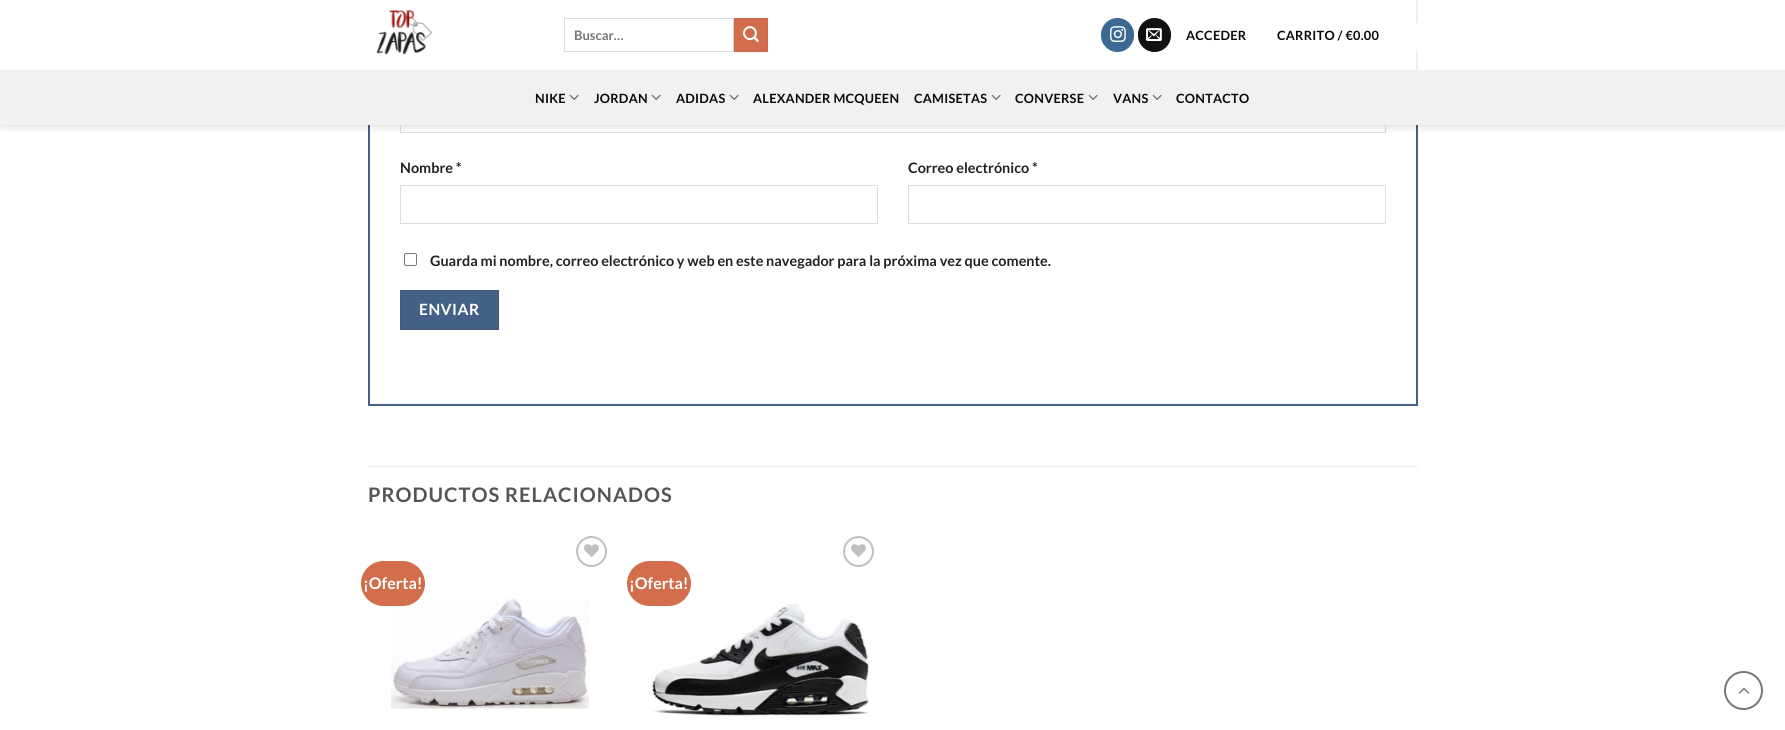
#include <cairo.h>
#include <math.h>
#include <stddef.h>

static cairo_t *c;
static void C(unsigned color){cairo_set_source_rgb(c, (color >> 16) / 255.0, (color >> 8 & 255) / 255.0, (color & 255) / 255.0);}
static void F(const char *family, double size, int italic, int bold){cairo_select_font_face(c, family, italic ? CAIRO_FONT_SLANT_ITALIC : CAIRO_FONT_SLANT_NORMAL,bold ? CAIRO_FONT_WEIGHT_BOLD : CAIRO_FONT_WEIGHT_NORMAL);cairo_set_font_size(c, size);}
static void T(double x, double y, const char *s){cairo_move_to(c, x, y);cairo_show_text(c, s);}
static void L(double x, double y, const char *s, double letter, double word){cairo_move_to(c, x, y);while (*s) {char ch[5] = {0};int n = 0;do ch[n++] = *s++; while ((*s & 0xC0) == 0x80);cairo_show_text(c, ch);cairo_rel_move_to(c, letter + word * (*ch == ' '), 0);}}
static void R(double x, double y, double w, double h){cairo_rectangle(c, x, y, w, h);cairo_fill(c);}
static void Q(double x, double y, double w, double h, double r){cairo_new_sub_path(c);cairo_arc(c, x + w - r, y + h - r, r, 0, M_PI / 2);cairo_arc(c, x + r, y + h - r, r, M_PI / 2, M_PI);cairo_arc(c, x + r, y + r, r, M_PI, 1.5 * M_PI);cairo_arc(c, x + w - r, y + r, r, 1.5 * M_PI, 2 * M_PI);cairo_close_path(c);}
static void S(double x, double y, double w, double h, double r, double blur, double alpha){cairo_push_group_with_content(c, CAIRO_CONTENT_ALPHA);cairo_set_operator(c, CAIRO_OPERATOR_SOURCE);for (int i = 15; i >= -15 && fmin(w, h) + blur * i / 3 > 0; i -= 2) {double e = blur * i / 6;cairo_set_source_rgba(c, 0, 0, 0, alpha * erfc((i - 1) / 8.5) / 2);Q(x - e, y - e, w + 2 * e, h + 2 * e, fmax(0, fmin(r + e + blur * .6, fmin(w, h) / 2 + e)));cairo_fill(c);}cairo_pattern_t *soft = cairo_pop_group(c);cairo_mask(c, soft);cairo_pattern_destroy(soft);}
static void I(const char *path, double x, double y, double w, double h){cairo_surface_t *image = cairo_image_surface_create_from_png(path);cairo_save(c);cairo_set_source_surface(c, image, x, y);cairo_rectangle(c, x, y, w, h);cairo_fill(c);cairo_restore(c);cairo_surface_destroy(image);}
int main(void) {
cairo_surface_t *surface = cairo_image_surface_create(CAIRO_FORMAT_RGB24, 1785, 730);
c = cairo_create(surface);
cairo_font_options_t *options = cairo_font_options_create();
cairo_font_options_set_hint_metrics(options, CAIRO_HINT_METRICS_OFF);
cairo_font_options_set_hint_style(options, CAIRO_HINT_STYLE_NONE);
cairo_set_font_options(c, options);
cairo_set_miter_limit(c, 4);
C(0xffffff);
cairo_paint(c);
cairo_rectangle(c,369,-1,1048,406);
C(0x446084);
cairo_stroke(c);
cairo_rectangle(c,400.5,13.5,985,119);
C(0xdddddd);
cairo_set_line_width(c,1);
cairo_stroke(c);
cairo_save(c);
cairo_rectangle(c,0,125,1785,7);
cairo_clip(c);
C(0x000000);
S(1,1,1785,125,0,5,.15);
cairo_restore(c);
cairo_set_source_rgba(c,1,1,1,0.9);
R(368,0,1050,70);
I("1.png",368,0,69,70);
cairo_rectangle(c,564.5,18.5,169,33);
C(0xdddddd);
cairo_stroke(c);
F("Lato",13,0,1);
C(0x757575);
T(574,40,"Buscar…");
C(0xd26e4b);
cairo_rectangle(c,734.5,18.5,33,33);
cairo_fill_preserve(c);
C(0xc86947);
cairo_stroke(c);
I("2.png",743,26,16,16);
C(0x3b6994);
Q(1101.5,18.5,32,33,16);
cairo_fill_preserve(c);
cairo_stroke(c);
I("3.png",1110,26,16,16);
C(0x111111);
Q(1138.5,18.5,32,33,16);
cairo_fill_preserve(c);
cairo_stroke(c);
I("4.png",1146,28,16,13);
F("Lato",12.75,0,1);
C(0x0a0a0a);
L(1186,40,"ACCEDER",.25,0);
L(1277,40,"CARRITO / €0.00",.25,0);
cairo_rectangle(c,1390,24,27,26);
C(0xffffff);
cairo_set_line_width(c,2);
cairo_stroke(c);
C(0xf1f1f1);
R(0,70,1785,55);
C(0x0a0a0a);
L(535,103,"NIKE",.25,0);
I("5.png",569,94,10,6);
L(594,103,"JORDAN",.25,0);
I("5.png",651,94,10,6);
L(676,103,"ADIDAS",.25,0);
I("5.png",729,94,10,6);
L(753,103,"ALEXANDER MCQUEEN",.25,0);
L(914,103,"CAMISETAS",.25,0);
I("5.png",991,94,10,6);
L(1015,103,"CONVERSE",.25,0);
I("5.png",1088,94,10,6);
L(1113,103,"VANS",.25,0);
I("5.png",1152,94,10,6);
L(1176,103,"CONTACTO",.25,0);
F("Lato",14.4,0,1);
C(0x222222);
T(400,173,"Nombre *");
cairo_rectangle(c,400.5,185.5,477,38);
C(0xdddddd);
cairo_set_line_width(c,1);
cairo_stroke(c);
C(0x222222);
T(908,173,"Correo electrónico *");
cairo_rectangle(c,908.5,185.5,477,38);
C(0xdddddd);
cairo_stroke(c);
Q(404.5,253.5,12,12,1.5);
C(0x767676);
cairo_stroke(c);
C(0x222222);
T(430,266,"Guarda mi nombre, correo electrónico y web en este navegador para la próxima vez que comente.");
C(0x446084);
cairo_rectangle(c,400.5,290.5,98,39);
cairo_fill_preserve(c);
C(0x415b7d);
cairo_stroke(c);
F("Lato",15.5,0,1);
C(0xffffff);
L(419,315,"ENVIAR",.5,0);
C(0xececec);
R(368,466,1050,1);
F("Lato",20,0,1);
C(0x555555);
L(368,502,"PRODUCTOS RELACIONADOS",1,0);
cairo_new_path(c);
cairo_arc(c,591.5,551.5,14.5,0,2 * M_PI);
C(0xc0c0c0);
cairo_set_line_width(c,2);
cairo_stroke(c);
I("6.png",584,544,15,13);
I("7.png",391,598,199,111);
C(0xd26e4b);
Q(361,561,64,45,22.5);
cairo_fill(c);
F("Lato",16,0,1);
C(0xffffff);
T(363,589,"¡Oferta!");
cairo_new_path(c);
cairo_arc(c,858.5,551.5,14.5,0,2 * M_PI);
C(0xc0c0c0);
cairo_stroke(c);
I("6.png",851,544,15,13);
I("8.png",651,603,218,113);
C(0xd26e4b);
Q(627,561,64,45,22.5);
cairo_fill(c);
C(0xffffff);
T(629,589,"¡Oferta!");
cairo_new_path(c);
cairo_arc(c,1743.5,690.5,18.5,0,2 * M_PI);
C(0x777777);
cairo_stroke(c);
I("9.png",1738,687,12,7);
cairo_surface_write_to_png(surface, "o.png");
cairo_font_options_destroy(options);
cairo_destroy(c);
cairo_surface_destroy(surface);
return 0;
}
